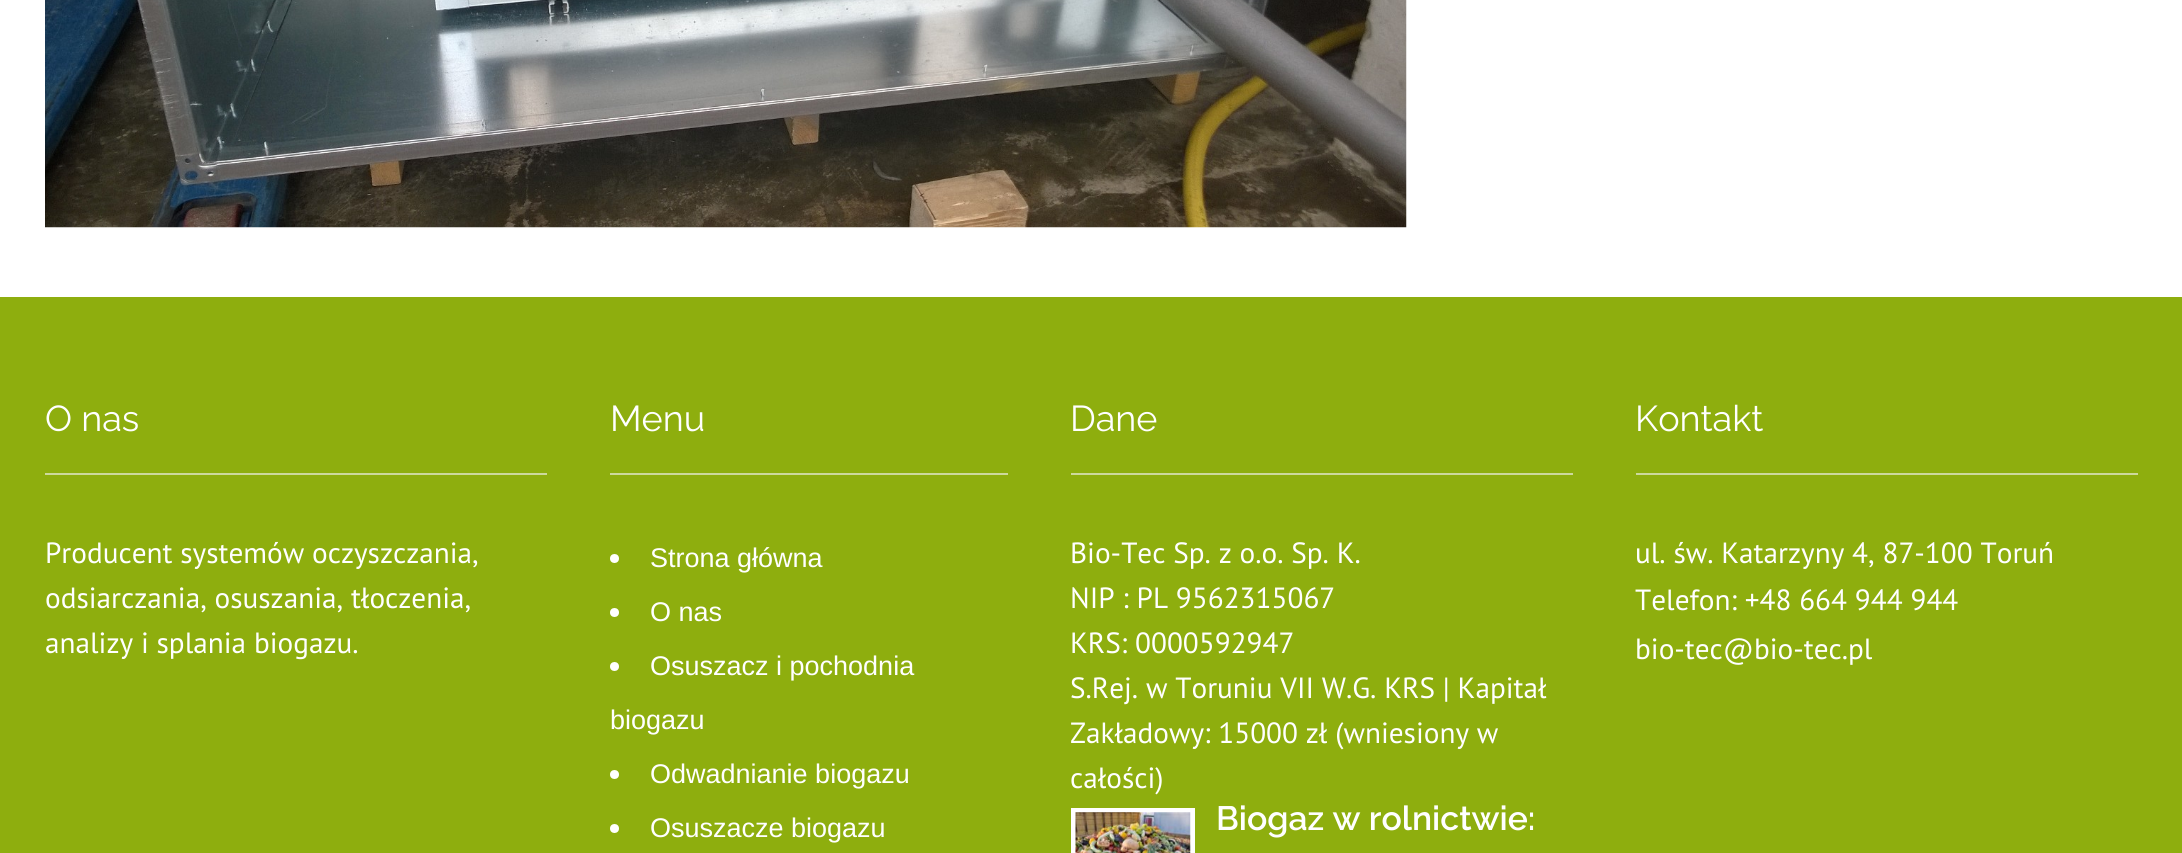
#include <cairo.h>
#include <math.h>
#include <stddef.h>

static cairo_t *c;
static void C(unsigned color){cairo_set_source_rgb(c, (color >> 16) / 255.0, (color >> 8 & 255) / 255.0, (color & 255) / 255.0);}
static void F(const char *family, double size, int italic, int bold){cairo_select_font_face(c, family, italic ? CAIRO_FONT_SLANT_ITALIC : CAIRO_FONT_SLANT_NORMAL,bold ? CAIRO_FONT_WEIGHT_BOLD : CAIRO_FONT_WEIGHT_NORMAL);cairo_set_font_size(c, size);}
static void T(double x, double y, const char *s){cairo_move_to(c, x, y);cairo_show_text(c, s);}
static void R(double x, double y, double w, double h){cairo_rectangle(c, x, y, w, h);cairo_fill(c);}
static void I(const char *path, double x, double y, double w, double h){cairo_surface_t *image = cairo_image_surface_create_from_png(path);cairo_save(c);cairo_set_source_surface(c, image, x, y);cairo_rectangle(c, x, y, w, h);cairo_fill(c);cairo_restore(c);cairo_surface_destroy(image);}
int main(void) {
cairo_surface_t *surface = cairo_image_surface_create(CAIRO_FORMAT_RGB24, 2182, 853);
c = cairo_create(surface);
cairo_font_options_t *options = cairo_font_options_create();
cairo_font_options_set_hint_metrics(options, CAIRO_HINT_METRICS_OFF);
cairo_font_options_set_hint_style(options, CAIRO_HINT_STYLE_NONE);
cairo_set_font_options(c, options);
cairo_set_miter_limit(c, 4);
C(0xffffff);
cairo_paint(c);
I("1.png",45,0,1362,228);
C(0x8eae0e);
R(0,297,2182,556);
C(0xcdd99d);
R(45,473,502,2);
F("Raleway",36,0,0);
C(0xffffff);
T(45,431,"O nas");
F("PT Sans",29.25,0,0);
T(45,563,"Producent systemów oczyszczania,");
T(45,608,"odsiarczania, osuszania, tłoczenia,");
T(45,653,"analizy i splania biogazu.");
C(0xcdd99d);
R(610,473,398,2);
F("Raleway",36,0,0);
C(0xffffff);
T(610,431,"Menu");
cairo_new_path(c);
cairo_arc(c,614.5,558.5,4.5,0,2 * M_PI);
cairo_fill(c);
F("Liberation Sans",27,0,0);
T(650,567,"Strona główna");
cairo_new_path(c);
cairo_arc(c,614.5,612.5,4.5,0,2 * M_PI);
cairo_fill(c);
T(650,621,"O nas");
cairo_new_path(c);
cairo_arc(c,614.5,666.5,4.5,0,2 * M_PI);
cairo_fill(c);
T(650,675,"Osuszacz i pochodnia");
T(610,729,"biogazu");
cairo_new_path(c);
cairo_arc(c,614.5,774.5,4.5,0,2 * M_PI);
cairo_fill(c);
T(650,783,"Odwadnianie biogazu");
cairo_new_path(c);
cairo_arc(c,614.5,828.5,4.5,0,2 * M_PI);
cairo_fill(c);
T(650,837,"Osuszacze biogazu");
C(0xcdd99d);
R(1071,473,502,2);
F("Raleway",36,0,0);
C(0xffffff);
T(1070,431,"Dane");
F("PT Sans",29.25,0,0);
T(1070,563,"Bio-Tec Sp. z o.o. Sp. K.");
T(1070,608,"NIP : PL 9562315067");
T(1070,653,"KRS: 0000592947");
T(1070,698,"S.Rej. w Toruniu VII W.G. KRS | Kapitał");
T(1070,743,"Zakładowy: 15000 zł (wniesiony w");
T(1070,788,"całości)");
cairo_rectangle(c,1073.5,810.5,119,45);
cairo_set_line_width(c,5);
cairo_stroke(c);
I("2.png",1075,812,116,41);
F("Raleway SemiBold",33.75,0,0);
T(1216,830,"Biogaz w rolnictwie:");
C(0xcdd99d);
R(1636,473,502,2);
F("Raleway",36,0,0);
C(0xffffff);
T(1635,431,"Kontakt");
F("PT Sans",29.25,0,0);
T(1635,563,"ul. św. Katarzyny 4, 87-100 Toruń");
T(1635,610,"Telefon: +48 664 944 944");
T(1635,659,"bio-tec@bio-tec.pl");
cairo_surface_write_to_png(surface, "o.png");
cairo_font_options_destroy(options);
cairo_destroy(c);
cairo_surface_destroy(surface);
return 0;
}
